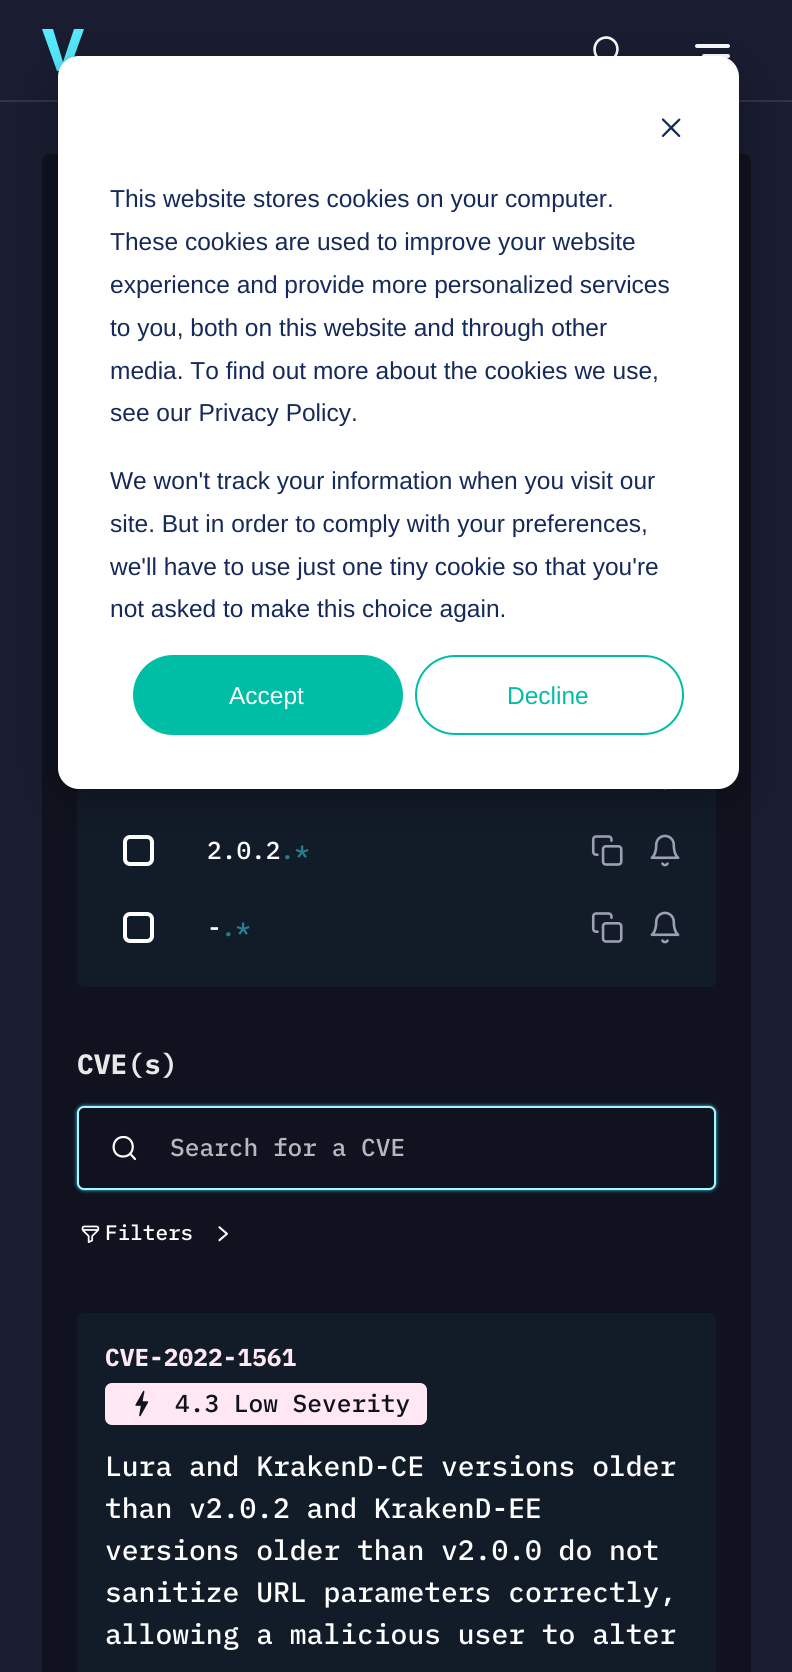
#include <cairo.h>
#include <math.h>
#include <stddef.h>

static cairo_t *c;
static void C(unsigned color){cairo_set_source_rgb(c, (color >> 16) / 255.0, (color >> 8 & 255) / 255.0, (color & 255) / 255.0);}
static void F(const char *family, double size, int italic, int bold){cairo_select_font_face(c, family, italic ? CAIRO_FONT_SLANT_ITALIC : CAIRO_FONT_SLANT_NORMAL,bold ? CAIRO_FONT_WEIGHT_BOLD : CAIRO_FONT_WEIGHT_NORMAL);cairo_set_font_size(c, size);}
static void T(double x, double y, const char *s){cairo_move_to(c, x, y);cairo_show_text(c, s);}
static void R(double x, double y, double w, double h){cairo_rectangle(c, x, y, w, h);cairo_fill(c);}
static void Q(double x, double y, double w, double h, double r){cairo_new_sub_path(c);cairo_arc(c, x + w - r, y + h - r, r, 0, M_PI / 2);cairo_arc(c, x + r, y + h - r, r, M_PI / 2, M_PI);cairo_arc(c, x + r, y + r, r, M_PI, 1.5 * M_PI);cairo_arc(c, x + w - r, y + r, r, 1.5 * M_PI, 2 * M_PI);cairo_close_path(c);}
static void S(double x, double y, double w, double h, double r, double blur, double alpha){cairo_push_group_with_content(c, CAIRO_CONTENT_ALPHA);cairo_set_operator(c, CAIRO_OPERATOR_SOURCE);for (int i = 15; i >= -15 && fmin(w, h) + blur * i / 3 > 0; i -= 2) {double e = blur * i / 6;cairo_set_source_rgba(c, 0, 0, 0, alpha * erfc((i - 1) / 8.5) / 2);Q(x - e, y - e, w + 2 * e, h + 2 * e, fmax(0, fmin(r + e + blur * .6, fmin(w, h) / 2 + e)));cairo_fill(c);}cairo_pattern_t *soft = cairo_pop_group(c);cairo_mask(c, soft);cairo_pattern_destroy(soft);}
static void I(const char *path, double x, double y, double w, double h){cairo_surface_t *image = cairo_image_surface_create_from_png(path);cairo_save(c);cairo_set_source_surface(c, image, x, y);cairo_rectangle(c, x, y, w, h);cairo_fill(c);cairo_restore(c);cairo_surface_destroy(image);}
int main(void) {
cairo_surface_t *surface = cairo_image_surface_create(CAIRO_FORMAT_RGB24, 792, 1672);
c = cairo_create(surface);
cairo_font_options_t *options = cairo_font_options_create();
cairo_font_options_set_hint_metrics(options, CAIRO_HINT_METRICS_OFF);
cairo_font_options_set_hint_style(options, CAIRO_HINT_STYLE_NONE);
cairo_set_font_options(c, options);
cairo_set_miter_limit(c, 4);
C(0x1a1d31);
cairo_paint(c);
C(0x313446);
R(0,100,792,2);
C(0x57ebff);
cairo_new_path(c);
cairo_move_to(c,57,71);
cairo_line_to(c,42,29);
cairo_line_to(c,53,29);
cairo_line_to(c,63,62);
cairo_line_to(c,74,29);
cairo_line_to(c,84,29);
cairo_line_to(c,69,71);
cairo_close_path(c);
cairo_fill(c);
cairo_new_path(c);
cairo_move_to(c,606,61);
cairo_curve_to(c,617.5,61,622,45,611.5,39);
cairo_curve_to(c,610,38,608,37.5,606,37.5);
cairo_curve_to(c,590.5,38.5,591,61,606,61);
cairo_close_path(c);
cairo_move_to(c,620.5,64);
cairo_line_to(c,614,57.5);
C(0xffffff);
cairo_set_line_width(c,2.6);
cairo_set_line_cap(c,CAIRO_LINE_CAP_ROUND);
cairo_set_line_join(c,CAIRO_LINE_JOIN_ROUND);
cairo_stroke(c);
Q(695,44,35,4,2);
cairo_fill(c);
Q(702,54,28,4,2);
cairo_fill(c);
C(0x10121f);
Q(42,154,709,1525,7);
cairo_fill(c);
C(0x121c29);
Q(77,560,639,427,7);
cairo_fill(c);
I("2.png",663,789,4,1);
Q(125,837,27,27,5);
C(0xffffff);
cairo_set_line_width(c,4);
cairo_set_line_cap(c,CAIRO_LINE_CAP_BUTT);
cairo_set_line_join(c,CAIRO_LINE_JOIN_MITER);
cairo_stroke(c);
I("3.png",591,835,32,31);
I("4.png",650,834,30,33);
C(0x000000);
S(58,70,681,733,21,24.5,.28);
C(0xffffff);
Q(58,56,681,733,21);
cairo_fill(c);
I("1.png",661,118,20,20);
F("Liberation Sans",24.5,0,0);
C(0x15295a);
T(110,207,"This website stores cookies on your computer.");
T(110,250,"These cookies are used to improve your website");
T(110,293,"experience and provide more personalized services");
T(110,336,"to you, both on this website and through other");
T(110,379,"media. To find out more about the cookies we use,");
T(110,421,"see our Privacy Policy.");
T(110,489,"We won't track your information when you visit our");
T(110,532,"site. But in order to comply with your preferences,");
T(110,575,"we'll have to use just one tiny cookie so that you're");
T(110,617,"not asked to make this choice again.");
C(0x00bda5);
Q(134,656,268,78,39);
cairo_fill_preserve(c);
cairo_set_line_width(c,2);
cairo_stroke(c);
C(0xffffff);
T(229,704,"Accept");
Q(416,656,267,78,39);
C(0x00bda5);
cairo_stroke(c);
T(507,704,"Decline");
F("IBM Plex Mono Medium",24.5,0,0);
C(0xffffff);
T(207,859,"2.0.2");
C(0x277d8f);
T(280,859,".*");
Q(125,914,27,27,5);
C(0xffffff);
cairo_set_line_width(c,4);
cairo_stroke(c);
T(207,936,"-");
C(0x277d8f);
T(221,936,".*");
I("3.png",591,912,32,31);
I("4.png",650,911,30,33);
F("IBM Plex Mono",28,0,1);
C(0xe8e8e8);
T(77,1074,"CVE(s)");
C(0x3dd3e8);
S(77,1106,639,84,7,2,1);
C(0x10121f);
Q(78,1107,637,82,6);
cairo_fill_preserve(c);
C(0xa9f5ff);
cairo_set_line_width(c,2);
cairo_stroke(c);
cairo_new_path(c);
cairo_move_to(c,123,1156.5);
cairo_curve_to(c,136.5,1156.5,135.5,1136.5,123,1137);
cairo_curve_to(c,110.5,1137.5,110.5,1156.5,123,1156.5);
cairo_close_path(c);
cairo_move_to(c,135,1159);
cairo_line_to(c,130,1153.5);
C(0xffffff);
cairo_set_line_width(c,2.2);
cairo_set_line_cap(c,CAIRO_LINE_CAP_ROUND);
cairo_set_line_join(c,CAIRO_LINE_JOIN_ROUND);
cairo_stroke(c);
F("IBM Plex Mono Medium",24.5,0,0);
C(0xb7b8bc);
T(170,1156,"Search for a CVE");
I("5.png",81,1225,19,18);
F("IBM Plex Mono Medium",21,0,0);
C(0xffffff);
T(105,1240,"Filters");
I("6.png",218,1226,10,16);
C(0x121c29);
Q(77,1313,639,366,7);
cairo_fill(c);
F("IBM Plex Mono",24.5,0,1);
C(0xffe7f4);
T(105,1366,"CVE-2022-1561");
Q(105,1383,322,42,7);
cairo_fill(c);
I("7.png",135,1390,14,27);
F("IBM Plex Mono Medium",24.5,0,0);
C(0x10121f);
T(175,1412,"4.3 Low Severity");
F("IBM Plex Mono Medium",28,0,0);
C(0xffffff);
T(105,1476,"Lura and KrakenD-CE versions older");
T(105,1518,"than v2.0.2 and KrakenD-EE");
T(105,1560,"versions older than v2.0.0 do not");
T(105,1602,"sanitize URL parameters correctly,");
T(105,1644,"allowing a malicious user to alter");
cairo_surface_write_to_png(surface, "o.png");
cairo_font_options_destroy(options);
cairo_destroy(c);
cairo_surface_destroy(surface);
return 0;
}
